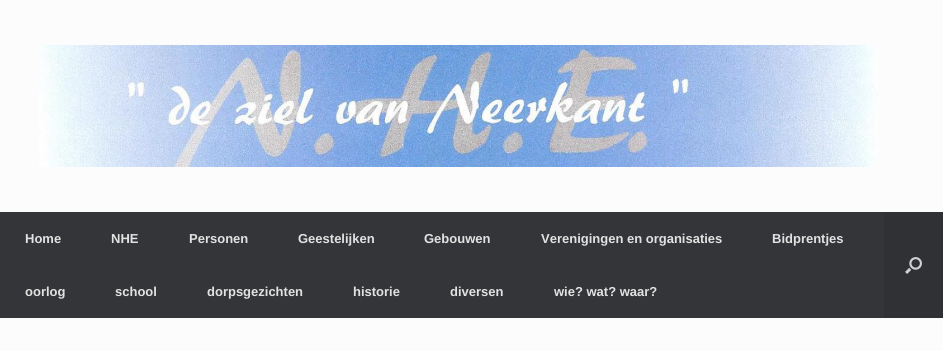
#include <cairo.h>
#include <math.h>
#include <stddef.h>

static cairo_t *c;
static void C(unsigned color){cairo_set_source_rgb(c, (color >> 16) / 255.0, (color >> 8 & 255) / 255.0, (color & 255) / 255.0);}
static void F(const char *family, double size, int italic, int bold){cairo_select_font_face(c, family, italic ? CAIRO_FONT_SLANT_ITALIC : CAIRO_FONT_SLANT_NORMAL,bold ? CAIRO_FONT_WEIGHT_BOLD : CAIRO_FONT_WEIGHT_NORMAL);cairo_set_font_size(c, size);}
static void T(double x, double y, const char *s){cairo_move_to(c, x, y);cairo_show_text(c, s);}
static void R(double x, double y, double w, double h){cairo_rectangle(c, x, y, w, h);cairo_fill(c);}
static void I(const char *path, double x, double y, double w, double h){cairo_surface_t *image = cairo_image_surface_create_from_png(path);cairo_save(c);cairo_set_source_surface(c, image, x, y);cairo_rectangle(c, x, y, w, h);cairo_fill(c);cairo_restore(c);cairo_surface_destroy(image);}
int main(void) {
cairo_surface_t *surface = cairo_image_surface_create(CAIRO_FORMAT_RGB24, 943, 351);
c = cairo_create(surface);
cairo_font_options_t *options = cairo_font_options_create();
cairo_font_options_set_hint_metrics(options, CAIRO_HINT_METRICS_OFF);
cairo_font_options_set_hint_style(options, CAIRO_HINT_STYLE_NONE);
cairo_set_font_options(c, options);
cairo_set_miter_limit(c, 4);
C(0xfcfcfc);
cairo_paint(c);
I("1.png",39,45,839,122);
C(0x343538);
R(0,212,884,106);
F("Liberation Sans",13,0,1);
C(0xe2e2e2);
T(25,243,"Home");
T(111,243,"NHE");
T(189,243,"Personen");
T(298,243,"Geestelijken");
T(424,243,"Gebouwen");
T(541,243,"Verenigingen en organisaties");
T(772,243,"Bidprentjes");
T(25,296,"oorlog");
T(115,296,"school");
T(207,296,"dorpsgezichten");
T(353,296,"historie");
T(450,296,"diversen");
T(554,296,"wie? wat? waar?");
C(0x303134);
R(884,212,59,106);
I("2.png",905,257,17,17);
cairo_surface_write_to_png(surface, "o.png");
cairo_font_options_destroy(options);
cairo_destroy(c);
cairo_surface_destroy(surface);
return 0;
}
